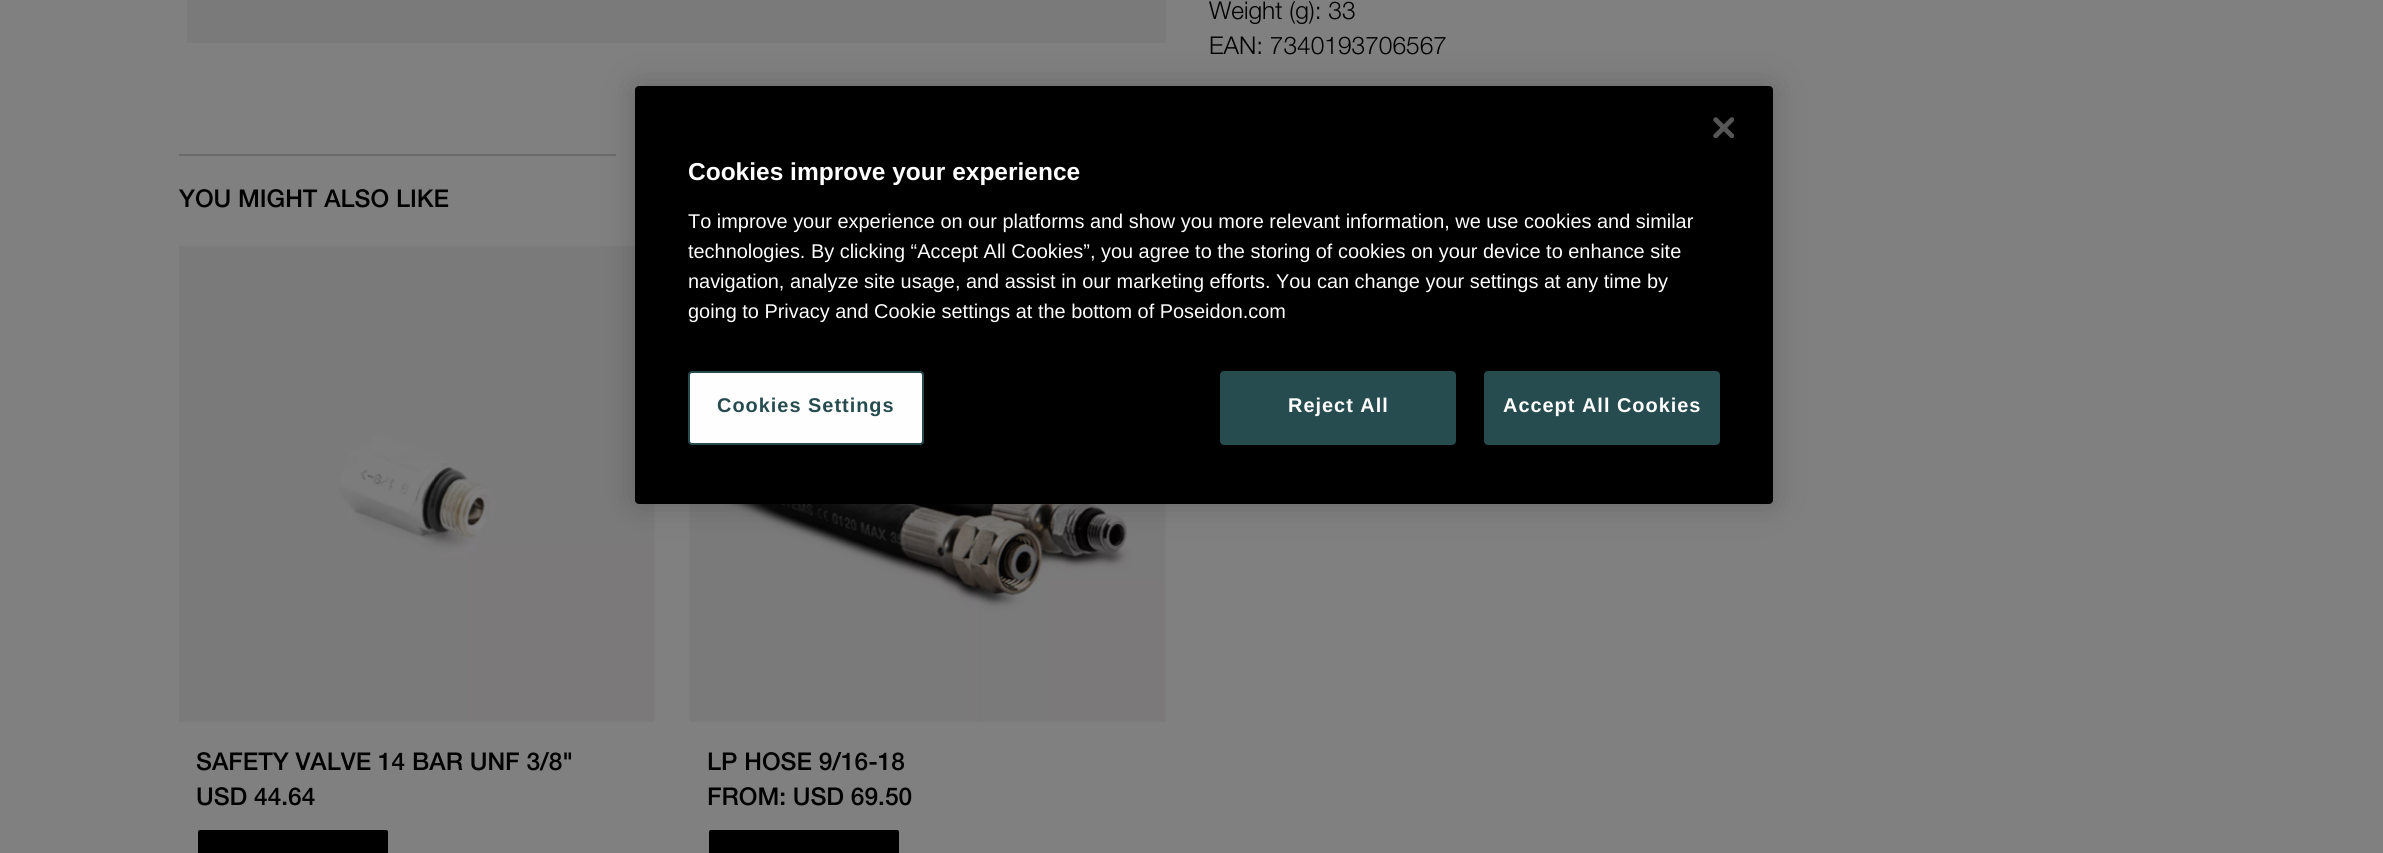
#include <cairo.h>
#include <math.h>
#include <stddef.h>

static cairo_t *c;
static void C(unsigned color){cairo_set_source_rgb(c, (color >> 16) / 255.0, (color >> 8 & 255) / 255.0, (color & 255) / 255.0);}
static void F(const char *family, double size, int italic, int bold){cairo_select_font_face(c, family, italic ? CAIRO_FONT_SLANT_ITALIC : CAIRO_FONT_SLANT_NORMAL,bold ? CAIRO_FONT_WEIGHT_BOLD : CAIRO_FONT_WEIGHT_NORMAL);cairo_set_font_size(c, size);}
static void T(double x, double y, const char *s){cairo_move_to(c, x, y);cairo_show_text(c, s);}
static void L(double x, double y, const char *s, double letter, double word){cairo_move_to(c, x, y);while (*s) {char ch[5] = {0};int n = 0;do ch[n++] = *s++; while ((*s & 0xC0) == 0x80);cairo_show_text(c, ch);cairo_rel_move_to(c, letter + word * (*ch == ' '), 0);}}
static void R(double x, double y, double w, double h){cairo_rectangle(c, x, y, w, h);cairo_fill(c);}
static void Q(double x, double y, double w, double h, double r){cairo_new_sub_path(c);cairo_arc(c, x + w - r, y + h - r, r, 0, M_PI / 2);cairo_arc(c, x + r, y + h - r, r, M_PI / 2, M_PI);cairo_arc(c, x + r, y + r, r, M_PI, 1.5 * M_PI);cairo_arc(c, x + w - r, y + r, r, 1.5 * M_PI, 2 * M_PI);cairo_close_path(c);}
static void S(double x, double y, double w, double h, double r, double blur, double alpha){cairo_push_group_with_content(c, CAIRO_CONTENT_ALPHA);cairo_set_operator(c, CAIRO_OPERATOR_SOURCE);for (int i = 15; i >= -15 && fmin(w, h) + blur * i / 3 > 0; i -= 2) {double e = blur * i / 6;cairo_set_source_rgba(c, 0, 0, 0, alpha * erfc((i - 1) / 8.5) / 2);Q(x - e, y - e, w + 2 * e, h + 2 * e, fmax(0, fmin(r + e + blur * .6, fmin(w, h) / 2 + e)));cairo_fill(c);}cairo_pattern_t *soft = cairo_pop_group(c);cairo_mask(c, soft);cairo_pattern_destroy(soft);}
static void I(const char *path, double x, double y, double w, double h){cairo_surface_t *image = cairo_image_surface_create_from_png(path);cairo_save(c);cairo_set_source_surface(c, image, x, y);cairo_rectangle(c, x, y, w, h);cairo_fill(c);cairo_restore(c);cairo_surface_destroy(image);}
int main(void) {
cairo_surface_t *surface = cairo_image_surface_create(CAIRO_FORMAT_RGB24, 2383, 853);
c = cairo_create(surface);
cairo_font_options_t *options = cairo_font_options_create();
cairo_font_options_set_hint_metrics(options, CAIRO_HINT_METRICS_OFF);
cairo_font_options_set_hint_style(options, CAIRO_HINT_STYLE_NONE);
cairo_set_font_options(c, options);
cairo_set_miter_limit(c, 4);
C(0x808080);
cairo_paint(c);
C(0x7b7a7b);
R(187,0,979,43);
F("Helvetica Neue Light",24.5,0,0);
C(0x000000);
T(1209,19,"Weight (g): 33");
T(1209,54,"EAN: 7340193706567");
C(0x6b6b6b);
R(179,154,437,2);
F("Helvetica Neue Medium",24.5,0,0);
C(0x000000);
T(179,207,"YOU MIGHT ALSO LIKE");
I("1.png",179,246,476,476);
T(196,770,"SAFETY VALVE 14 BAR UNF 3/8\"");
T(196,805,"USD 44.64");
Q(197,829,192,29,3);
cairo_fill_preserve(c);
C(0x808080);
cairo_stroke(c);
I("2.png",689,504,477,218);
C(0x000000);
T(707,770,"LP HOSE 9/16-18");
T(707,805,"FROM: USD 69.50");
Q(708,829,192,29,3);
cairo_fill_preserve(c);
C(0x808080);
cairo_stroke(c);
C(0x000000);
S(635,86,1138,418,4,16,.2);
C(0x000000);
Q(635,86,1138,418,4);
cairo_fill(c);
I("3.png",1713,117,21,21);
F("Liberation Sans",24.5,0,1);
C(0xfffefe);
T(688,180,"Cookies improve your experience");
F("Liberation Sans",19.92,0,0);
T(688,228,"To improve your experience on our platforms and show you more relevant information, we use cookies and similar");
T(688,258,"technologies. By clicking “Accept All Cookies”, you agree to the storing of cookies on your device to enhance site");
T(688,288,"navigation, analyze site usage, and assist in our marketing efforts. You can change your settings at any time by");
T(688,318,"going to Privacy and Cookie settings at the bottom of Poseidon.com");
Q(689,372,234,72,3);
cairo_fill_preserve(c);
C(0x274c4f);
cairo_stroke(c);
F("Liberation Sans",19.92,0,1);
L(717,412,"Cookies Settings",1,0);
Q(1221,372,234,72,3);
cairo_fill_preserve(c);
cairo_stroke(c);
C(0xfffefe);
L(1288,412,"Reject All",1,0);
C(0x274c4f);
Q(1485,372,234,72,3);
cairo_fill_preserve(c);
cairo_stroke(c);
C(0xfffefe);
L(1503,412,"Accept All Cookies",1,0);
cairo_surface_write_to_png(surface, "o.png");
cairo_font_options_destroy(options);
cairo_destroy(c);
cairo_surface_destroy(surface);
return 0;
}
